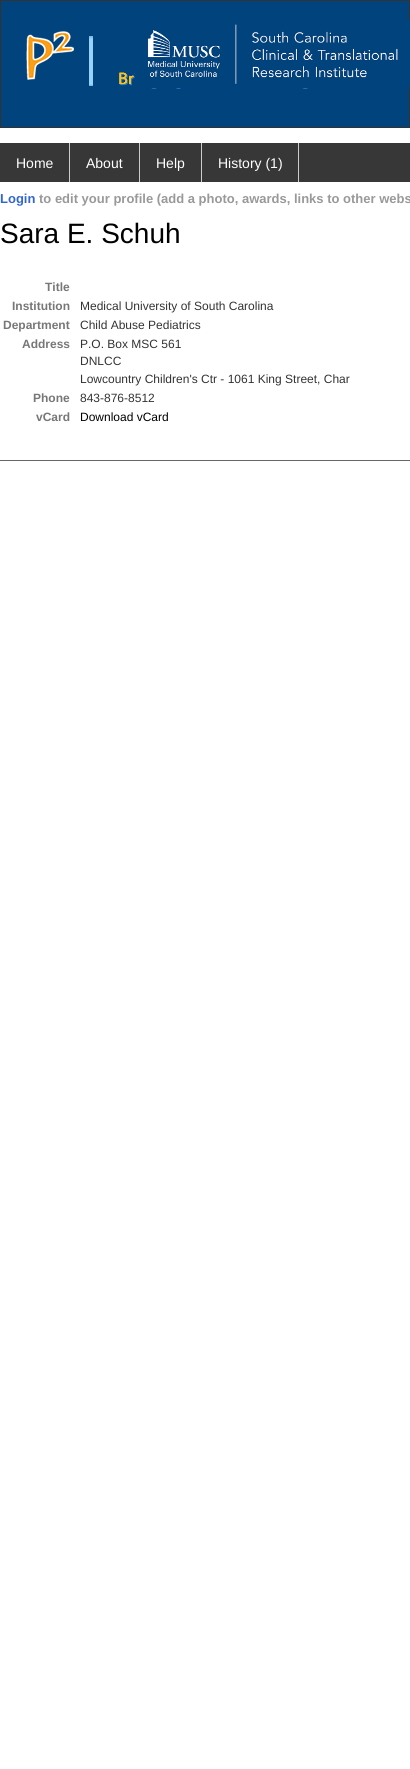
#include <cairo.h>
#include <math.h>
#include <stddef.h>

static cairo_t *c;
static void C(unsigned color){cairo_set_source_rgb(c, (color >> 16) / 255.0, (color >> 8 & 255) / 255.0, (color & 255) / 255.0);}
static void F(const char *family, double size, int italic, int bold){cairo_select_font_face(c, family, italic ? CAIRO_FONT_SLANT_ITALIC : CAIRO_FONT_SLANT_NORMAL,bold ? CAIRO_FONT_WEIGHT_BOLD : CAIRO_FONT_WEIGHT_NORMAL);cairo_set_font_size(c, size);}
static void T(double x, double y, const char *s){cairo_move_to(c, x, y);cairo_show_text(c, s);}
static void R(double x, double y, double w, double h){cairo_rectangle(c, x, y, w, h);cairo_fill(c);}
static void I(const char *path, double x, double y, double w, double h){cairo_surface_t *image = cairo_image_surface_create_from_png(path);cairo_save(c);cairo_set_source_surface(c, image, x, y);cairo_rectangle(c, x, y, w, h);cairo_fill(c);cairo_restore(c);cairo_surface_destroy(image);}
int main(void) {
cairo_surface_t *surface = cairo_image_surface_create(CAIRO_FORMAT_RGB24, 410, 1769);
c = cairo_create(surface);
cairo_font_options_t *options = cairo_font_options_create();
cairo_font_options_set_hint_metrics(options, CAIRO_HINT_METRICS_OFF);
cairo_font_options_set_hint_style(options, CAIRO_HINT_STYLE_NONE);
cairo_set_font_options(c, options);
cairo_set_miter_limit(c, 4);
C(0xffffff);
cairo_paint(c);
C(0x01437d);
cairo_rectangle(c,.5,.5,409,127);
cairo_fill_preserve(c);
C(0x333333);
cairo_set_line_width(c,1);
cairo_stroke(c);
I("4.png",119,72,189,17);
I("1.png",135,20,275,68);
I("2.png",26,31,48,49);
I("3.png",89,36,4,50);
C(0x383737);
R(0,143,410,39);
C(0xcccccc);
R(69,143,1,39);
F("Liberation Sans",14,0,0);
C(0xffffff);
T(16,168,"Home");
C(0xcccccc);
R(139,143,1,39);
C(0xffffff);
T(86,168,"About");
C(0xcccccc);
R(201,143,1,39);
C(0xffffff);
T(156,168,"Help");
C(0xcccccc);
R(298,143,1,39);
C(0xffffff);
T(218,168,"History (1)");
F("Liberation Sans",13,0,1);
C(0x3366cc);
T(0,203,"Login");
C(0x999999);
T(39,203,"to edit your profile (add a photo, awards, links to other webs");
F("Liberation Sans",28,0,0);
C(0x000000);
T(0,243,"Sara E. Schuh");
F("Liberation Sans",12,0,1);
C(0x777777);
T(45,291,"Title");
T(12,310,"Institution");
F("Liberation Sans",12,0,0);
C(0x333333);
T(80,310,"Medical University of South Carolina");
F("Liberation Sans",12,0,1);
C(0x777777);
T(3,329,"Department");
F("Liberation Sans",12,0,0);
C(0x333333);
T(80,329,"Child Abuse Pediatrics");
F("Liberation Sans",12,0,1);
C(0x777777);
T(22,348,"Address");
F("Liberation Sans",12,0,0);
C(0x333333);
T(80,348,"P.O. Box MSC 561");
T(80,365,"DNLCC");
T(80,383,"Lowcountry Children's Ctr - 1061 King Street, Char");
F("Liberation Sans",12,0,1);
C(0x777777);
T(33,402,"Phone");
F("Liberation Sans",12,0,0);
C(0x333333);
T(80,402,"843-876-8512");
F("Liberation Sans",12,0,1);
C(0x777777);
T(36,421,"vCard");
F("Liberation Sans",12,0,0);
C(0x000000);
T(80,421,"Download vCard");
C(0x666666);
R(0,460,410,1);
cairo_surface_write_to_png(surface, "o.png");
cairo_font_options_destroy(options);
cairo_destroy(c);
cairo_surface_destroy(surface);
return 0;
}
